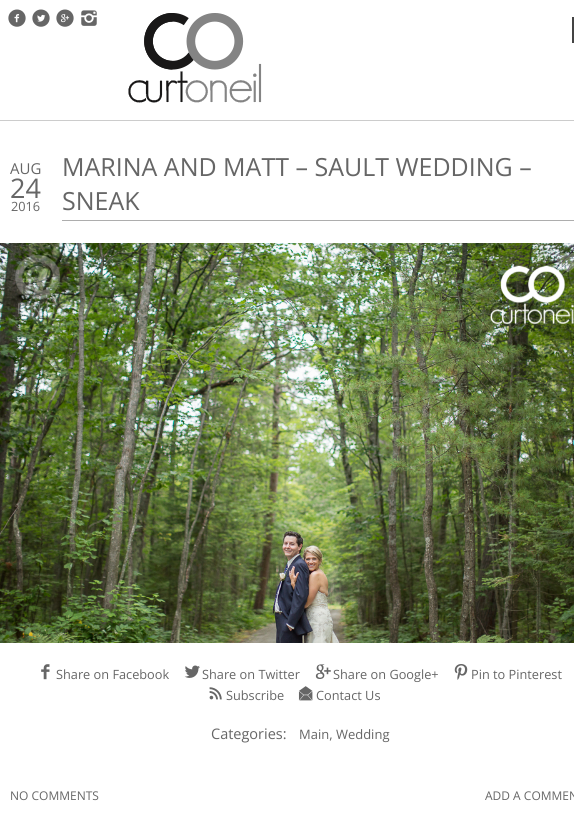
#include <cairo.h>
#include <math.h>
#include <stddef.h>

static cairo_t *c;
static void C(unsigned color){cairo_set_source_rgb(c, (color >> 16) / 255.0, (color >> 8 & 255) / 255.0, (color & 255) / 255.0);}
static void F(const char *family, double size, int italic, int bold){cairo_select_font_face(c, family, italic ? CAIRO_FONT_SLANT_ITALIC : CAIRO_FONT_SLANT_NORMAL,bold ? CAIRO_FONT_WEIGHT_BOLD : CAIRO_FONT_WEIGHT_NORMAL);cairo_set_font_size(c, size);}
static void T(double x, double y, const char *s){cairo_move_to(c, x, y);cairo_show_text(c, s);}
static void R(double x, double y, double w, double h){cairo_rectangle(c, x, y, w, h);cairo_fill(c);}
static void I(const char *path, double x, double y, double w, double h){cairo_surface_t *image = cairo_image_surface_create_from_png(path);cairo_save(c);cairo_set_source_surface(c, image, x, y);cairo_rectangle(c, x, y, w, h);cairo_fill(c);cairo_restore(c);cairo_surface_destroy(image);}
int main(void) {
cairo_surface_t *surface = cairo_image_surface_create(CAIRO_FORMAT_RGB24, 574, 825);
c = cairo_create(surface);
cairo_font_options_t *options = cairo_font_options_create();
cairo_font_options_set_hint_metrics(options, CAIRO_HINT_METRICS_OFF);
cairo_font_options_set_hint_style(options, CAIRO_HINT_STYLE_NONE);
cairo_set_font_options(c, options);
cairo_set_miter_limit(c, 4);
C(0xffffff);
cairo_paint(c);
C(0xcccccc);
R(0,120,574,1);
I("1.png",8,9,18,18);
I("2.png",32,9,18,18);
I("3.png",56,9,18,18);
I("4.png",81,10,16,16);
I("5.png",128,13,134,90);
C(0x444444);
R(572,17,2,26);
F("Open Sans",15,0,0);
C(0x666666);
T(10,174,"AUG");
F("Open Sans",27,0,0);
T(10,198,"24");
F("Open Sans",12.75,0,0);
T(11,211,"2016");
C(0xadadad);
R(62,220,512,1);
F("Open Sans",25,0,0);
C(0x666666);
T(62,176,"MARINA AND MATT – SAULT WEDDING –");
T(62,210,"SNEAK");
I("6.png",0,243,574,400);
I("7.png",15,255,45,59);
cairo_set_source_rgba(c,1,1,1,0.25);
cairo_new_path(c);
cairo_move_to(c,568,256.5);
cairo_curve_to(c,572,247,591.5,258,568,272.5);
cairo_curve_to(c,545,258,563.5,247,568,256.5);
cairo_close_path(c);
cairo_fill(c);
I("8.png",41,664,9,16);
F("Open Sans",12.75,0,0);
C(0x666666);
T(56,679,"Share on Facebook");
I("9.png",184,665,16,13);
T(202,679,"Share on Twitter");
I("10.png",315,664,16,15);
T(333,679,"Share on Google+");
I("11.png",454,664,14,16);
T(471,679,"Pin to Pinterest");
I("12.png",209,687,13,13);
T(226,700,"Subscribe");
I("13.png",298,686,15,15);
T(316,700,"Contact Us");
F("Open Sans",14.5,0,0);
T(211,739,"Categories:");
F("Open Sans",13,0,0);
T(299,739,"Main, Wedding");
F("Open Sans",12,0,0);
T(10,800,"NO COMMENTS");
T(485,800,"ADD A COMMEN");
cairo_surface_write_to_png(surface, "o.png");
cairo_font_options_destroy(options);
cairo_destroy(c);
cairo_surface_destroy(surface);
return 0;
}
